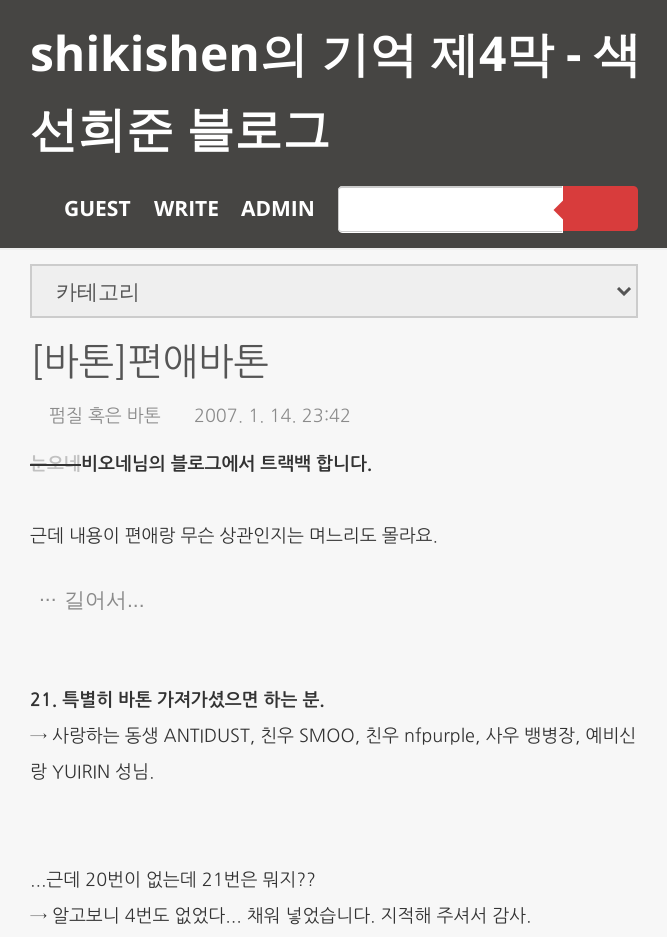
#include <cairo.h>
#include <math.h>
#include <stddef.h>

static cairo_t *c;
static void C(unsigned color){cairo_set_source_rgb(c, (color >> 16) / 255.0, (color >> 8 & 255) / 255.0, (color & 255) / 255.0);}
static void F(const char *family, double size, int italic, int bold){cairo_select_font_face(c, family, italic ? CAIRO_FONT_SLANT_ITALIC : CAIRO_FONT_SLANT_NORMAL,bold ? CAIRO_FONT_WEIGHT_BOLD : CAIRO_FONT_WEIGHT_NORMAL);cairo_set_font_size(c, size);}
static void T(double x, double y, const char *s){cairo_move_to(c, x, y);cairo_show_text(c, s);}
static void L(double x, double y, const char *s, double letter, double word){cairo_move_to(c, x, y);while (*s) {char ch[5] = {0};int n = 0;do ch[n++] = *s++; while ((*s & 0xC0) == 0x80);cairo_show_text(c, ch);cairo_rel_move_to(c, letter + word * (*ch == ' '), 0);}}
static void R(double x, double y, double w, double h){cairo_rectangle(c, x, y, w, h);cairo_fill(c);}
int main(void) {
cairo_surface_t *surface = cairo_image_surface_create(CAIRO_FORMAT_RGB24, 667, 937);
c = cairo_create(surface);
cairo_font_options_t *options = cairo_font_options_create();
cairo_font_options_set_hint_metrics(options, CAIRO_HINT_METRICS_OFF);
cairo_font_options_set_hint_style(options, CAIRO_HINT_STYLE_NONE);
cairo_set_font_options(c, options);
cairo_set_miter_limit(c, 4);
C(0xf7f7f7);
cairo_paint(c);
C(0x464543);
R(0,0,667,248);
C(0xeeeeee);
R(0,248,667,2);
F("Open Sans",48,0,1);
C(0xffffff);
T(30,71,"shikishen");
F("WenQuanYi Zen Hei",48,0,1);
L(260,71,"의 기억 제",0,-1);
F("Open Sans",48,0,1);
T(479,71,"4");
F("WenQuanYi Zen Hei",48,0,1);
T(506,71,"막");
F("Open Sans",48,0,1);
T(566,71,"-");
F("WenQuanYi Zen Hei",48,0,1);
T(593,71,"색");
L(30,146,"선희준 블로그",0,-2);
F("Open Sans",21,0,1);
T(64,216,"GUEST");
T(154,216,"WRITE");
T(241,216,"ADMIN");
cairo_new_path(c);
cairo_move_to(c,343,186);
cairo_line_to(c,563,186);
cairo_line_to(c,563,233);
cairo_line_to(c,343,233);
cairo_curve_to(c,340,233,338,231,338,228);
cairo_line_to(c,338,191);
cairo_curve_to(c,338,188,340,186,343,186);
cairo_close_path(c);
cairo_fill(c);
C(0xcccccc);
cairo_set_fill_rule(c,CAIRO_FILL_RULE_EVEN_ODD);
cairo_new_path(c);
cairo_move_to(c,342,186);
cairo_line_to(c,562,186);
cairo_line_to(c,562,232);
cairo_line_to(c,342,232);
cairo_curve_to(c,340,232,338,230,338,228);
cairo_line_to(c,338,190);
cairo_curve_to(c,338,188,340,186,342,186);
cairo_close_path(c);
cairo_move_to(c,342,188);
cairo_line_to(c,562,188);
cairo_line_to(c,562,231);
cairo_line_to(c,342,231);
cairo_curve_to(c,340,231,339,230,339,228);
cairo_line_to(c,339,190);
cairo_curve_to(c,339,189,340,188,342,188);
cairo_close_path(c);
cairo_fill(c);
C(0xd83c3c);
cairo_new_path(c);
cairo_move_to(c,563,186);
cairo_line_to(c,633,186);
cairo_curve_to(c,636,186,638,188,638,191);
cairo_line_to(c,638,226);
cairo_curve_to(c,638,229,636,231,633,231);
cairo_line_to(c,563,231);
cairo_close_path(c);
cairo_fill(c);
cairo_set_fill_rule(c,CAIRO_FILL_RULE_WINDING);
cairo_new_path(c);
cairo_move_to(c,565.5,198);
cairo_line_to(c,565.5,222);
cairo_line_to(c,553.5,210);
cairo_close_path(c);
cairo_fill(c);
C(0xefefef);
cairo_rectangle(c,31,265,606,52);
cairo_fill_preserve(c);
C(0xcccccc);
cairo_stroke(c);
cairo_new_path(c);
cairo_move_to(c,618,288);
cairo_line_to(c,624,294);
cairo_line_to(c,630,288);
C(0x555555);
cairo_set_line_width(c,3);
cairo_stroke(c);
F("WenQuanYi Zen Hei Medium",21,0,0);
T(56,299,"카테고리");
F("NanumGothic",37.5,0,0);
T(30,375,"[바톤]편애바톤");
F("NanumGothic",18,0,0);
C(0x8b8b8b);
T(49,422,"펌질 혹은 바톤");
T(194,422,"2007. 1. 14. 23:42");
F("NanumGothic",18,0,1);
C(0xc1c1c1);
T(30,470,"눈오네");
C(0x333333);
R(30,464,51,2);
T(81,470,"비오네님의 블로그에서 트랙백 합니다.");
F("NanumGothic",18,0,0);
T(30,542,"근데 내용이 편애랑 무슨 상관인지는 며느리도 몰라요.");
F("Liberation Sans",21,0,0);
C(0x8b8b8b);
T(39,601,"...");
F("WenQuanYi Zen Hei Medium",21,0,0);
T(64,607,"길어서");
F("Liberation Sans",21,0,0);
T(127,607,"...");
F("NanumGothic",18,0,1);
C(0x333333);
T(30,706,"21. 특별히 바톤 가져가셨으면 하는 분.");
F("NanumGothic",18,0,0);
T(30,742,"→ 사랑하는 동생 ANTIDUST, 친우 SMOO, 친우 nfpurple, 사우 뱅병장, 예비신");
T(30,778,"랑 YUIRIN 성님.");
T(30,886,"...근데 20번이 없는데 21번은 뭐지?\077");
T(30,922,"→ 알고보니 4번도 없었다... 채워 넣었습니다. 지적해 주셔서 감사.");
cairo_surface_write_to_png(surface, "o.png");
cairo_font_options_destroy(options);
cairo_destroy(c);
cairo_surface_destroy(surface);
return 0;
}
